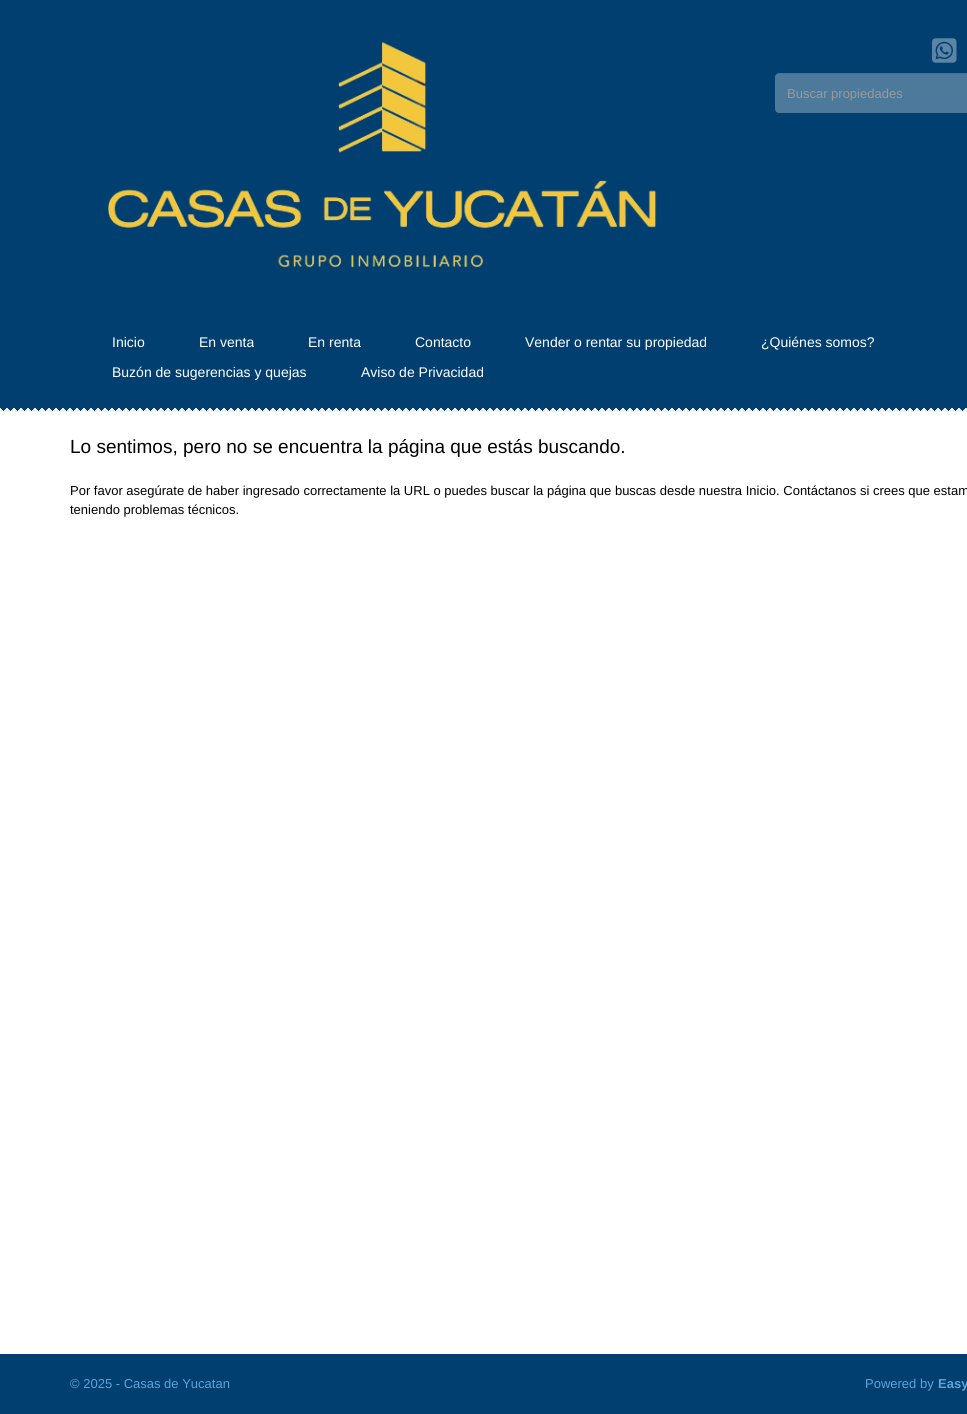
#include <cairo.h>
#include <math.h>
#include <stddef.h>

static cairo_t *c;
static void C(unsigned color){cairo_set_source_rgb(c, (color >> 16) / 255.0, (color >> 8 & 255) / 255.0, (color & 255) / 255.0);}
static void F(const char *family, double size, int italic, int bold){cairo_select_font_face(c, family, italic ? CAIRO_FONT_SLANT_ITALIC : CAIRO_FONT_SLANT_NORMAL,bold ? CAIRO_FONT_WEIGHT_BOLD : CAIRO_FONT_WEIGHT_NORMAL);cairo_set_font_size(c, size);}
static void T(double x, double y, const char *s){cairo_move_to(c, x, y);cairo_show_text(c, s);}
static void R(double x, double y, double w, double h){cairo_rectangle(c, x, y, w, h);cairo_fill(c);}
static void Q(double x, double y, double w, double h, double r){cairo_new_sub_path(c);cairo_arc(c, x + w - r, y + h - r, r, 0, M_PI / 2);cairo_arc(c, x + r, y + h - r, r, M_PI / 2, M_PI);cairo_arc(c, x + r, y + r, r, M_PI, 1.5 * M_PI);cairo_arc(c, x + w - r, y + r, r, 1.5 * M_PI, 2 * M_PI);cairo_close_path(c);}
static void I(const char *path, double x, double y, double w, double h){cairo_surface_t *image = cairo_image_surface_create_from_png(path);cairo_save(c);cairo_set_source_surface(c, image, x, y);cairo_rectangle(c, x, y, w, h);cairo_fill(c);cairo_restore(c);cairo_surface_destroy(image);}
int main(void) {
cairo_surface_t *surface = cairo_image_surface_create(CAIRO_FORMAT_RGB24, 967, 1414);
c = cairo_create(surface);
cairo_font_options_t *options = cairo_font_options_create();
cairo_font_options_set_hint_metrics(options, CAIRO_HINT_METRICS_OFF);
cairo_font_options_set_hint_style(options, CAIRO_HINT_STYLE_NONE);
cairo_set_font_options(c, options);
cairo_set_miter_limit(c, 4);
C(0xffffff);
cairo_paint(c);
C(0x003f70);
R(0,0,967,407);
I("1.png",108,42,549,226);
I("2.png",932,38,25,25);
C(0x4d799b);
Q(775,73,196,40,4);
cairo_fill(c);
cairo_set_source_rgba(c,0,0,0,0.07);
cairo_new_path(c);
cairo_move_to(c,779,74);
cairo_line_to(c,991,74);
cairo_curve_to(c,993,74,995,76,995,78);
cairo_curve_to(c,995,75,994,73,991,73);
cairo_line_to(c,777,73);
cairo_curve_to(c,775,74,775,76,775,78);
cairo_curve_to(c,775,76,777,74,779,74);
cairo_close_path(c);
cairo_fill(c);
F("Liberation Sans",13,0,0);
C(0x999999);
T(787,98,"Buscar propiedades");
F("Liberation Sans",14,0,0);
C(0xffffff);
T(112,347,"Inicio");
T(199,347,"En venta");
T(308,347,"En renta");
T(415,347,"Contacto");
T(525,347,"Vender o rentar su propiedad");
T(761,347,"¿Quiénes somos?");
T(112,377,"Buzón de sugerencias y quejas");
T(361,377,"Aviso de Privacidad");
I("3.png",0,407,967,5);
F("Liberation Sans",19,0,0);
C(0x000000);
T(70,453,"Lo sentimos, pero no se encuentra la página que estás buscando.");
F("Liberation Sans",13,0,0);
T(70,495,"Por favor asegúrate de haber ingresado correctamente la URL o puedes buscar la página que buscas desde nuestra Inicio. Contáctanos si crees que estam");
T(70,514,"teniendo problemas técnicos.");
C(0x003f70);
R(0,1354,967,60);
C(0x5da3d9);
T(70,1388,"© 2025 - Casas de Yucatan");
T(865,1388,"Powered by");
F("Liberation Sans",13,0,1);
T(938,1388,"Easy");
cairo_surface_write_to_png(surface, "o.png");
cairo_font_options_destroy(options);
cairo_destroy(c);
cairo_surface_destroy(surface);
return 0;
}
